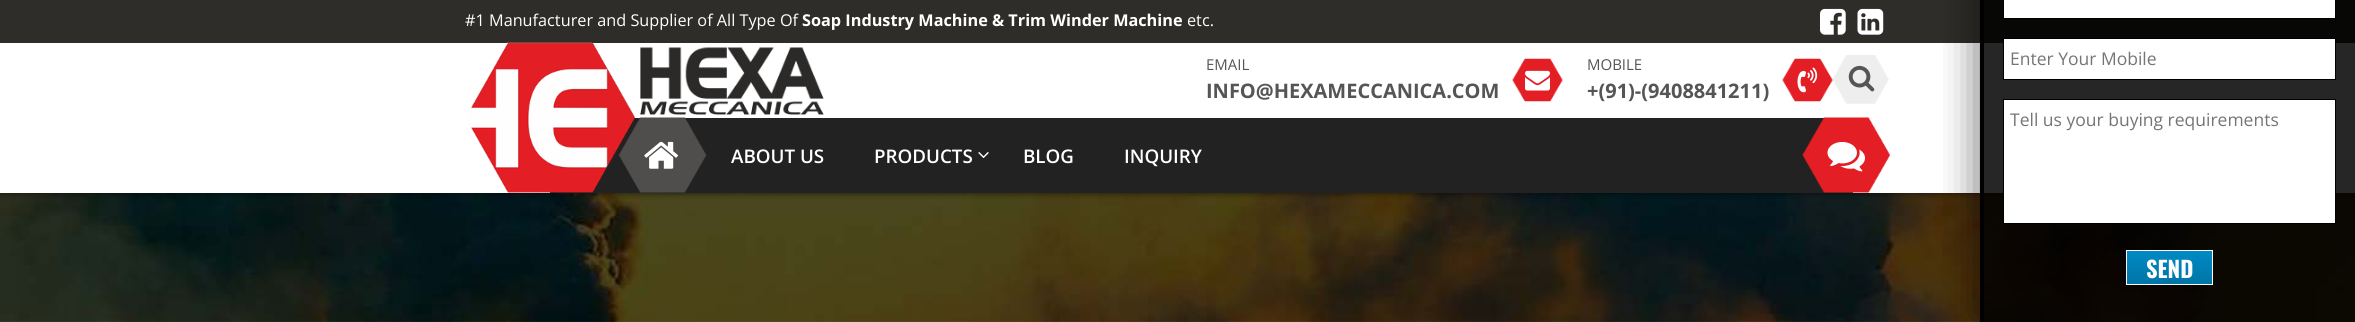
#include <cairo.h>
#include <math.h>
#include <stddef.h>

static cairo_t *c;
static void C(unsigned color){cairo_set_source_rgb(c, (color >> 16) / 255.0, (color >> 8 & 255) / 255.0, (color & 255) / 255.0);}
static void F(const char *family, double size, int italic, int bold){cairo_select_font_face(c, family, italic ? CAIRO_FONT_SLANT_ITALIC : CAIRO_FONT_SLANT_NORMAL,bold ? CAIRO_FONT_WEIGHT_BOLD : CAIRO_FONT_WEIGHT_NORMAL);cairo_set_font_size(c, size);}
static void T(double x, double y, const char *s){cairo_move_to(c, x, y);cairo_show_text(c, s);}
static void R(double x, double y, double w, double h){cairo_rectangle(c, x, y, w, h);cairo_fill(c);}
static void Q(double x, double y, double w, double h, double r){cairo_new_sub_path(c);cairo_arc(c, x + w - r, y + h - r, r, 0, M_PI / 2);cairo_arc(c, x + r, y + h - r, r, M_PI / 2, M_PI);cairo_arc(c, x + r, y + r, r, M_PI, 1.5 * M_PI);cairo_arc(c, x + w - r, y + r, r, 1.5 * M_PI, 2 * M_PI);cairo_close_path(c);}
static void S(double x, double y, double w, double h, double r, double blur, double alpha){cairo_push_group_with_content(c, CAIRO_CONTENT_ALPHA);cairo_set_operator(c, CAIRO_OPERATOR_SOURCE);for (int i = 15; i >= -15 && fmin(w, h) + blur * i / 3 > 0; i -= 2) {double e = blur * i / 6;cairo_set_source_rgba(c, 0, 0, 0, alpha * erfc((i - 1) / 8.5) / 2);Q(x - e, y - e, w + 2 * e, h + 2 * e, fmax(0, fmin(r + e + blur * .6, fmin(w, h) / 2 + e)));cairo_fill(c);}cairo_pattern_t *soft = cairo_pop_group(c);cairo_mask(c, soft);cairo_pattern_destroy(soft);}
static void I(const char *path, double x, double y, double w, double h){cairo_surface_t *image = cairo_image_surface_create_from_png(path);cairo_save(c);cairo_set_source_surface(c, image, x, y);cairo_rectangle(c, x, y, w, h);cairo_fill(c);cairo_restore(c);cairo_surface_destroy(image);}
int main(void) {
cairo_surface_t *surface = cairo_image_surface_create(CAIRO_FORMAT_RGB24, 2355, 322);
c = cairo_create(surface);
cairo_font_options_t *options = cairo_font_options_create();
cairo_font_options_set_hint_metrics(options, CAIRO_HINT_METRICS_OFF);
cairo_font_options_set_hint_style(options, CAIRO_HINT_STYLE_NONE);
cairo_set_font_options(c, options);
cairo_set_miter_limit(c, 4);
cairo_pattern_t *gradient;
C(0xffffff);
cairo_paint(c);
I("16.png",0,193,2355,129);
C(0x000000);
S(0,1,2355,193,0,3,.5);
C(0xffffff);
R(0,43,2355,150);
C(0x2f2d29);
R(0,0,2355,43);
F("Open Sans",16.25,0,0);
C(0xffffff);
T(465,26,"#1 Manufacturer and Supplier of All Type Of");
F("Open Sans",16.25,0,1);
T(802,26,"Soap Industry Machine & Trim Winder Machine");
F("Open Sans",16.25,0,0);
T(1187,26,"etc.");
I("1.png",1820,8,26,27);
I("2.png",1857,8,27,27);
C(0x222222);
R(550,118,1303,75);
I("11.png",618,117,89,76);
I("3.png",467,42,168,151);
I("4.png",640,47,184,68);
F("Open Sans",15,0,0);
C(0x555555);
T(1206,70,"EMAIL");
F("Open Sans",20,0,1);
T(1206,98,"INFO@HEXAMECCANICA.COM");
I("5.png",1512,58,51,44);
I("6.png",1525,70,25,21);
F("Open Sans",15,0,0);
T(1587,70,"MOBILE");
I("9.png",1832,55,57,49);
I("7.png",1782,58,51,44);
I("8.png",1797,67,21,26);
F("Open Sans",20,0,1);
T(1587,98,"+(91)-(9408841211)");
I("10.png",1848,65,27,27);
I("12.png",644,141,34,28);
F("Open Sans SemiBold",18.75,0,0);
C(0xffffff);
T(731,163,"ABOUT US");
T(874,163,"PRODUCTS");
I("13.png",978,152,11,6);
T(1023,163,"BLOG");
T(1124,163,"INQUIRY");
I("14.png",1802,117,88,76);
I("15.png",1827,142,38,30);
cairo_save(c);
cairo_rectangle(c,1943,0,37,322);
cairo_clip(c);
C(0x000000);
S(1976,-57,375,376,0,19,.5);
cairo_restore(c);
cairo_set_source_rgba(c,0,0,0,0.85);
R(1984,0,371,322);
C(0x000000);
R(1980,0,4,322);
C(0xffffff);
cairo_rectangle(c,2003.5,-.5,332,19);
cairo_fill_preserve(c);
C(0x000000);
cairo_set_line_width(c,1);
cairo_stroke(c);
C(0xffffff);
cairo_rectangle(c,2003.5,38.5,332,41);
cairo_fill_preserve(c);
C(0x000000);
cairo_stroke(c);
F("Open Sans",17.5,0,0);
C(0x757575);
T(2010,65,"Enter Your Mobile");
C(0xffffff);
cairo_rectangle(c,2003.5,99.5,332,124);
cairo_fill_preserve(c);
C(0x000000);
cairo_stroke(c);
C(0x757575);
T(2010,126,"Tell us your buying requirements");
gradient = cairo_pattern_create_linear(2169,251,2169,284);
cairo_pattern_add_color_stop_rgba(gradient,0,0,0.541,0.769,1);
cairo_pattern_add_color_stop_rgba(gradient,1,0,0.459,0.651,1);
cairo_set_source(c,gradient);
cairo_pattern_destroy(gradient);
R(2127,251,85,33);
cairo_rectangle(c,2126.5,250.5,86,34);
C(0xffffff);
cairo_stroke(c);
F("Oswald",22.5,0,1);
T(2146,278,"SEND");
cairo_surface_write_to_png(surface, "o.png");
cairo_font_options_destroy(options);
cairo_destroy(c);
cairo_surface_destroy(surface);
return 0;
}
